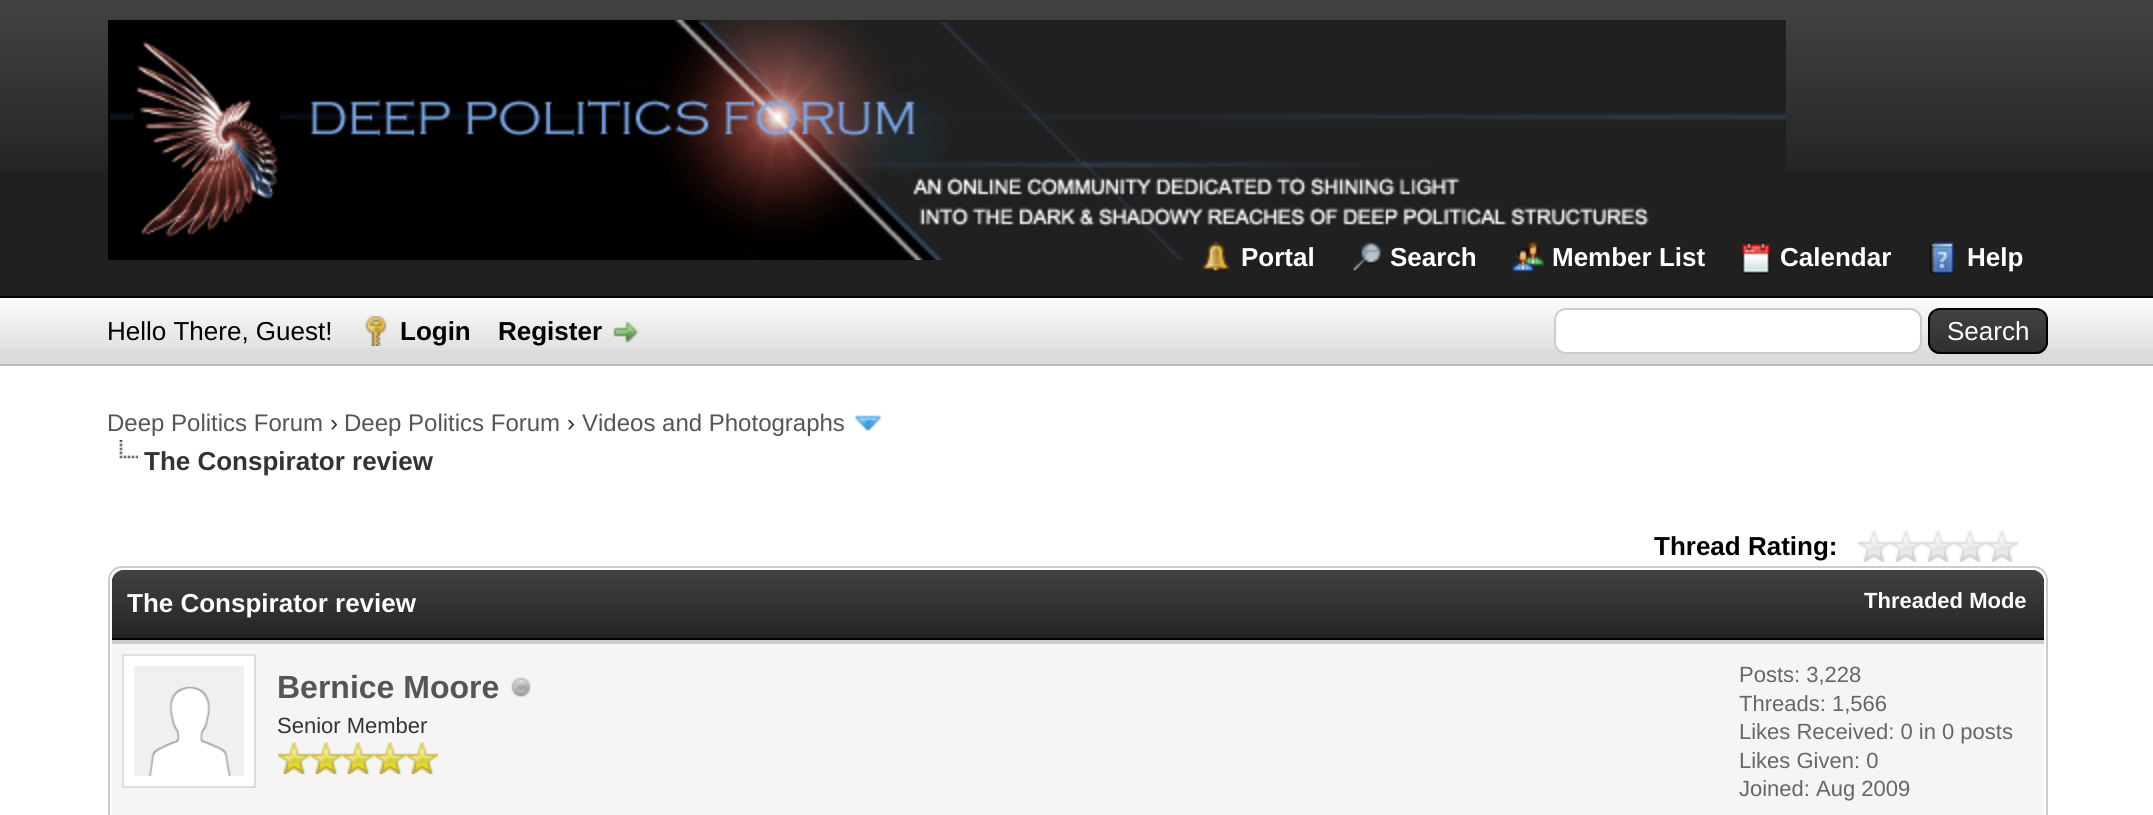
#include <cairo.h>
#include <math.h>
#include <stddef.h>

static cairo_t *c;
static void C(unsigned color){cairo_set_source_rgb(c, (color >> 16) / 255.0, (color >> 8 & 255) / 255.0, (color & 255) / 255.0);}
static void F(const char *family, double size, int italic, int bold){cairo_select_font_face(c, family, italic ? CAIRO_FONT_SLANT_ITALIC : CAIRO_FONT_SLANT_NORMAL,bold ? CAIRO_FONT_WEIGHT_BOLD : CAIRO_FONT_WEIGHT_NORMAL);cairo_set_font_size(c, size);}
static void T(double x, double y, const char *s){cairo_move_to(c, x, y);cairo_show_text(c, s);}
static void R(double x, double y, double w, double h){cairo_rectangle(c, x, y, w, h);cairo_fill(c);}
static void Q(double x, double y, double w, double h, double r){cairo_new_sub_path(c);cairo_arc(c, x + w - r, y + h - r, r, 0, M_PI / 2);cairo_arc(c, x + r, y + h - r, r, M_PI / 2, M_PI);cairo_arc(c, x + r, y + r, r, M_PI, 1.5 * M_PI);cairo_arc(c, x + w - r, y + r, r, 1.5 * M_PI, 2 * M_PI);cairo_close_path(c);}
static void I(const char *path, double x, double y, double w, double h){cairo_surface_t *image = cairo_image_surface_create_from_png(path);cairo_save(c);cairo_set_source_surface(c, image, x, y);cairo_rectangle(c, x, y, w, h);cairo_fill(c);cairo_restore(c);cairo_surface_destroy(image);}
int main(void) {
cairo_surface_t *surface = cairo_image_surface_create(CAIRO_FORMAT_RGB24, 2153, 815);
c = cairo_create(surface);
cairo_font_options_t *options = cairo_font_options_create();
cairo_font_options_set_hint_metrics(options, CAIRO_HINT_METRICS_OFF);
cairo_font_options_set_hint_style(options, CAIRO_HINT_STYLE_NONE);
cairo_set_font_options(c, options);
cairo_set_miter_limit(c, 4);
C(0xffffff);
cairo_paint(c);
C(0x202020);
R(0,171,2153,125);
I("1.png",0,0,2153,171);
C(0x000000);
R(0,296,2153,2);
I("2.png",108,20,1678,240);
I("3.png",1201,242,30,31);
F("Liberation Sans",26,0,1);
C(0xffffff);
T(1241,266,"Portal");
I("4.png",1353,242,29,30);
T(1390,266,"Search");
I("5.png",1512,242,32,31);
T(1552,266,"Member List");
I("6.png",1741,242,30,32);
T(1780,266,"Calendar");
I("7.png",1929,242,26,32);
T(1967,266,"Help");
C(0xdcdbdc);
R(0,350,2153,14);
I("8.png",0,300,2153,50);
C(0xbbbbbb);
R(0,364,2153,2);
F("Liberation Sans",26,0,0);
C(0x000000);
T(107,340,"Hello There, Guest!");
I("9.png",365,316,22,30);
F("Liberation Sans",26,0,1);
T(400,340,"Login");
T(498,340,"Register");
I("10.png",613,321,26,22);
C(0xffffff);
Q(1555,309,366,44,11);
cairo_fill_preserve(c);
C(0xcccccc);
cairo_stroke(c);
I("11.png",1928,310,120,44);
Q(1929,309,118,44,11);
C(0x000000);
cairo_stroke(c);
F("Liberation Sans",26,0,0);
C(0xffffff);
T(1947,340,"Search");
F("Liberation Sans",24,0,0);
C(0x555555);
T(107,431,"Deep Politics Forum");
C(0x333333);
T(330,431,"›");
C(0x555555);
T(344,431,"Deep Politics Forum");
C(0x333333);
T(567,431,"›");
C(0x555555);
T(582,431,"Videos and Photographs");
I("12.png",853,415,30,16);
I("13.png",119,440,19,19);
F("Liberation Sans",26,0,1);
C(0x333333);
T(144,470,"The Conspirator review");
C(0x000000);
T(1654,555,"Thread Rating:");
I("14.png",1858,530,160,32);
Q(109,567,1938,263,13);
C(0xcccccc);
cairo_stroke(c);
C(0x202121);
cairo_new_path(c);
cairo_move_to(c,124,570);
cairo_line_to(c,2032,570);
cairo_curve_to(c,2038.5,570,2044,575.5,2044,582);
cairo_line_to(c,2044,640);
cairo_line_to(c,112,640);
cairo_line_to(c,112,582);
cairo_curve_to(c,112,575.5,117.5,570,124,570);
cairo_close_path(c);
cairo_fill(c);
I("15.png",112,570,1932,65);
C(0x000000);
R(112,638,1932,2);
C(0xffffff);
T(127,612,"The Conspirator review");
F("Liberation Sans",22,0,1);
T(1864,608,"Threaded Mode");
C(0xf5f5f5);
R(112,644,1932,171);
C(0xcccccc);
R(112,640,1932,4);
C(0xffffff);
cairo_rectangle(c,123,655,132,132);
cairo_fill_preserve(c);
C(0xdddddd);
cairo_stroke(c);
I("16.png",134,666,110,110);
F("Liberation Sans",32,0,1);
C(0x555555);
T(277,698,"Bernice Moore");
I("17.png",511,677,20,20);
F("Liberation Sans",22,0,0);
C(0x333333);
T(277,733,"Senior Member");
I("18.png",278,742,32,32);
I("18.png",310,742,32,32);
I("18.png",342,742,32,32);
I("18.png",374,742,32,32);
I("18.png",406,742,32,32);
C(0x666666);
T(1739,682,"Posts: 3,228");
T(1739,711,"Threads: 1,566");
T(1739,739,"Likes Received: 0 in 0 posts");
T(1739,768,"Likes Given: 0");
T(1739,796,"Joined: Aug 2009");
cairo_surface_write_to_png(surface, "o.png");
cairo_font_options_destroy(options);
cairo_destroy(c);
cairo_surface_destroy(surface);
return 0;
}
